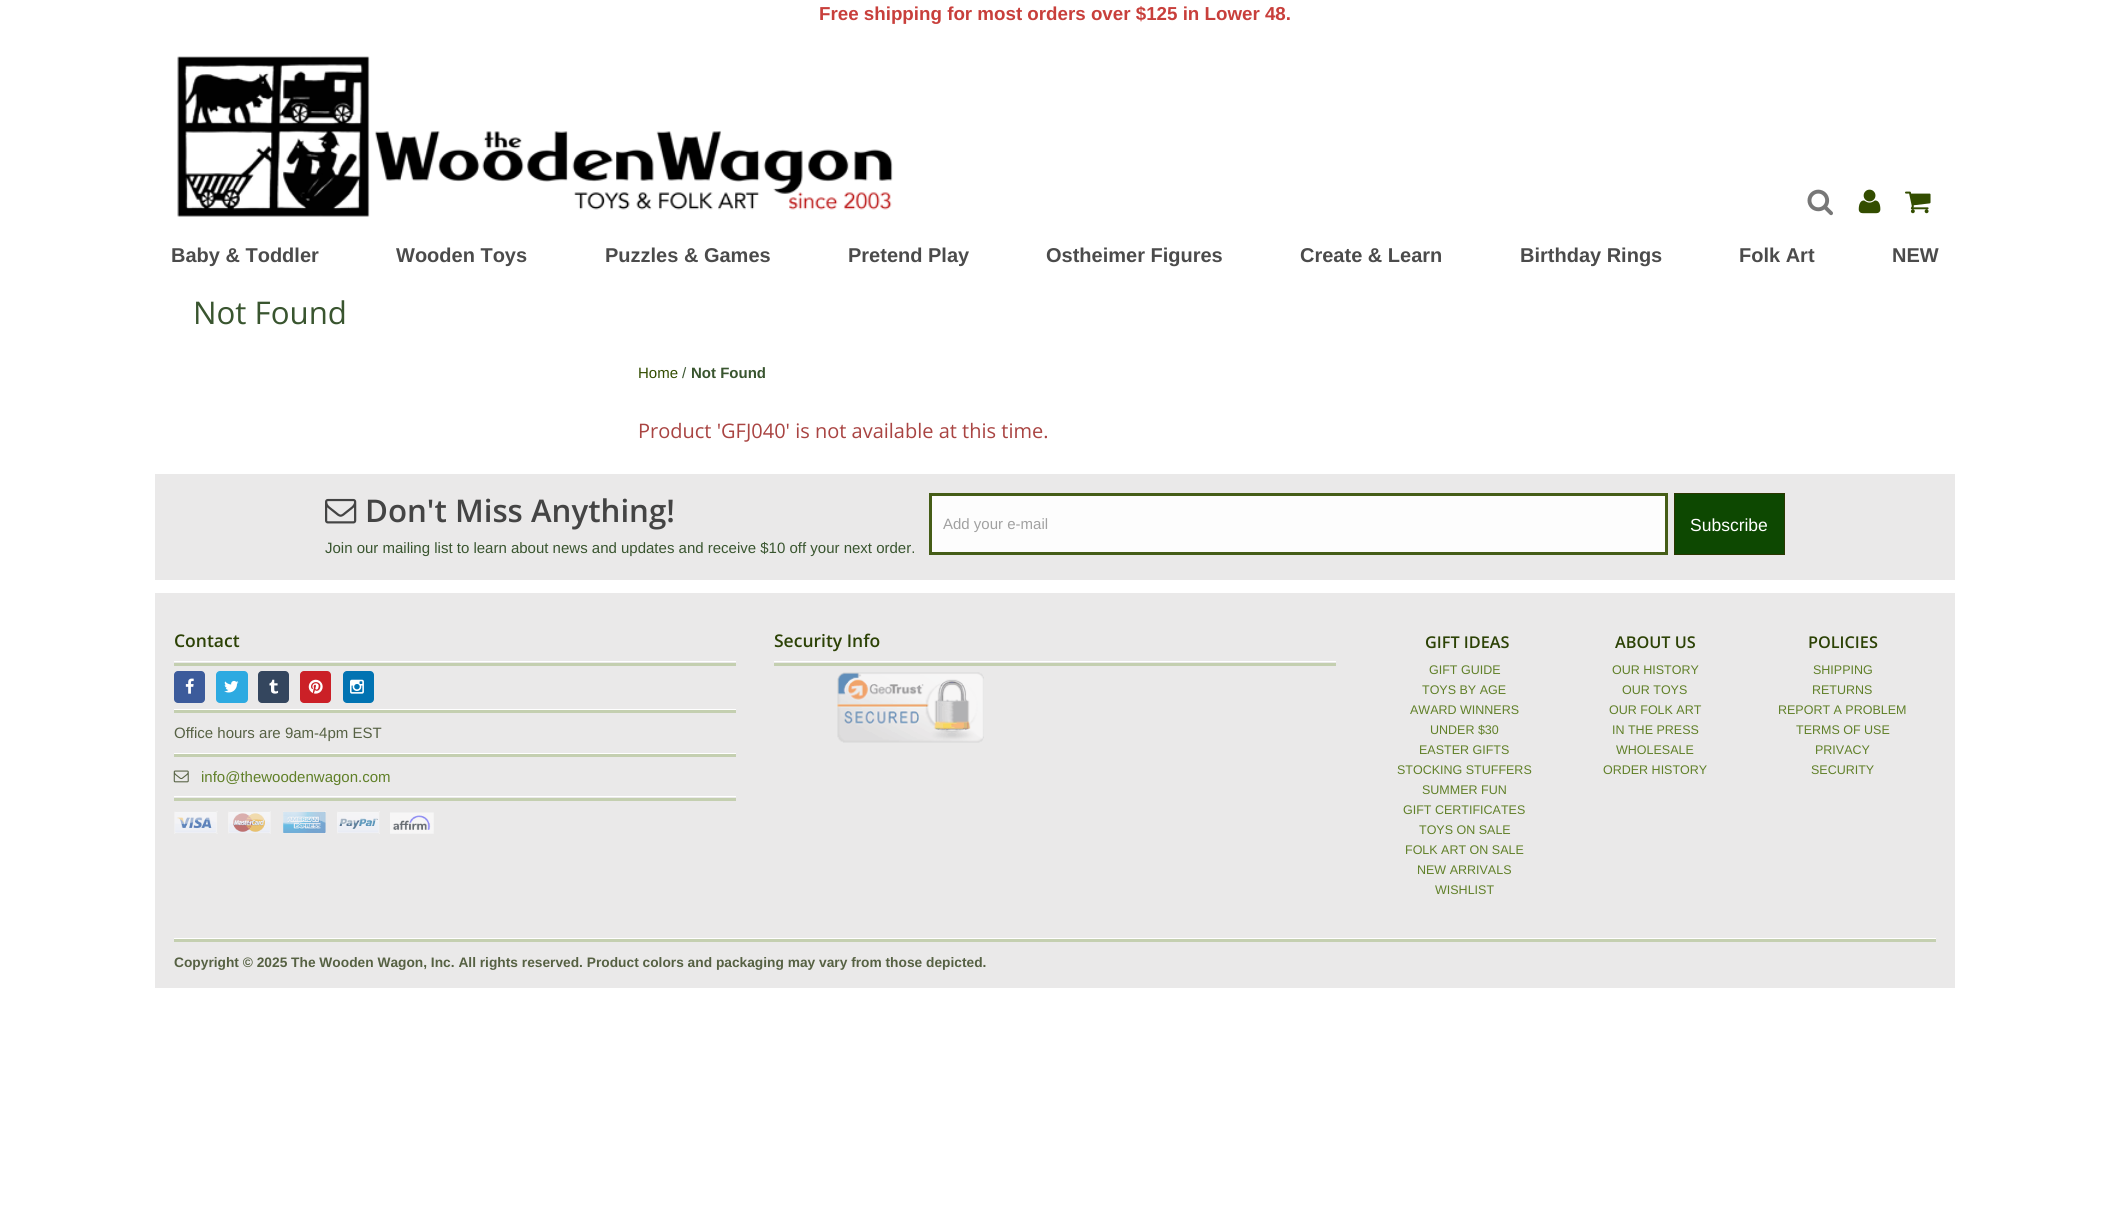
#include <cairo.h>
#include <math.h>
#include <stddef.h>

static cairo_t *c;
static void C(unsigned color){cairo_set_source_rgb(c, (color >> 16) / 255.0, (color >> 8 & 255) / 255.0, (color & 255) / 255.0);}
static void F(const char *family, double size, int italic, int bold){cairo_select_font_face(c, family, italic ? CAIRO_FONT_SLANT_ITALIC : CAIRO_FONT_SLANT_NORMAL,bold ? CAIRO_FONT_WEIGHT_BOLD : CAIRO_FONT_WEIGHT_NORMAL);cairo_set_font_size(c, size);}
static void T(double x, double y, const char *s){cairo_move_to(c, x, y);cairo_show_text(c, s);}
static void R(double x, double y, double w, double h){cairo_rectangle(c, x, y, w, h);cairo_fill(c);}
static void Q(double x, double y, double w, double h, double r){cairo_new_sub_path(c);cairo_arc(c, x + w - r, y + h - r, r, 0, M_PI / 2);cairo_arc(c, x + r, y + h - r, r, M_PI / 2, M_PI);cairo_arc(c, x + r, y + r, r, M_PI, 1.5 * M_PI);cairo_arc(c, x + w - r, y + r, r, 1.5 * M_PI, 2 * M_PI);cairo_close_path(c);}
static void I(const char *path, double x, double y, double w, double h){cairo_surface_t *image = cairo_image_surface_create_from_png(path);cairo_save(c);cairo_set_source_surface(c, image, x, y);cairo_rectangle(c, x, y, w, h);cairo_fill(c);cairo_restore(c);cairo_surface_destroy(image);}
int main(void) {
cairo_surface_t *surface = cairo_image_surface_create(CAIRO_FORMAT_RGB24, 2109, 1231);
c = cairo_create(surface);
cairo_font_options_t *options = cairo_font_options_create();
cairo_font_options_set_hint_metrics(options, CAIRO_HINT_METRICS_OFF);
cairo_font_options_set_hint_style(options, CAIRO_HINT_STYLE_NONE);
cairo_set_font_options(c, options);
cairo_set_miter_limit(c, 4);
C(0xffffff);
cairo_paint(c);
F("Liberation Sans",18.75,0,1);
C(0xc83f3b);
T(819,20,"Free shipping for most orders over $125 in Lower 48.");
I("1.png",177,56,716,161);
I("2.png",1807,189,26,27);
I("3.png",1858,189,23,25);
I("4.png",1905,191,26,23);
F("Liberation Sans",20,0,1);
C(0x4b4b4b);
T(171,262,"Baby & Toddler");
T(396,262,"Wooden Toys");
T(605,262,"Puzzles & Games");
T(848,262,"Pretend Play");
T(1046,262,"Ostheimer Figures");
T(1300,262,"Create & Learn");
T(1520,262,"Birthday Rings");
T(1739,262,"Folk Art");
T(1892,262,"NEW");
F("Open Sans",31.25,0,0);
C(0x39552f);
T(193,324,"Not Found");
F("Liberation Sans",15,0,0);
C(0x334d00);
T(638,378,"Home");
C(0x39552f);
T(682,378,"/");
F("Liberation Sans",15,0,1);
T(691,378,"Not Found");
F("Open Sans",20,0,0);
C(0xa94442);
T(638,438,"Product 'GFJ040' is not available at this time.");
C(0xeae9e9);
R(155,474,1800,106);
I("5.png",325,498,32,26);
F("Open Sans SemiBold",31.25,0,0);
C(0x444444);
T(365,522,"Don't Miss Anything!");
F("Liberation Sans",15,0,0);
C(0x39552f);
T(325,553,"Join our mailing list to learn about news and updates and receive $10 off your next order.");
C(0xfdfdfd);
cairo_rectangle(c,930.5,494.5,736,59);
cairo_fill_preserve(c);
C(0x455d17);
cairo_set_line_width(c,3);
cairo_stroke(c);
C(0xa1a1a1);
T(943,529,"Add your e-mail");
C(0x0d4801);
cairo_rectangle(c,1674.5,493.5,110,61);
cairo_fill_preserve(c);
C(0x2b3701);
cairo_set_line_width(c,1);
cairo_stroke(c);
F("Liberation Sans",17.5,0,0);
C(0xffffff);
T(1690,531,"Subscribe");
C(0xeae9e9);
R(155,593,1800,395);
F("Open Sans SemiBold",17.5,0,0);
C(0x2c4205);
T(174,647,"Contact");
C(0xffffff);
R(174,661,562,1);
C(0xc4cfb0);
R(174,663,562,3);
C(0x3c5b9b);
Q(174,671,31,32,4);
cairo_fill(c);
I("6.png",185,678,9,16);
C(0x2daae1);
Q(216,671,32,32,4);
cairo_fill(c);
I("7.png",224,680,15,13);
C(0x34465e);
Q(258,671,31,32,4);
cairo_fill(c);
I("8.png",269,679,10,15);
C(0xcb2027);
Q(300,671,31,32,4);
cairo_fill(c);
I("9.png",308,679,15,15);
C(0x0173b2);
Q(343,671,31,32,4);
cairo_fill(c);
I("10.png",350,679,14,15);
C(0xffffff);
R(174,709,562,1);
C(0xc4cfb0);
R(174,710,562,3);
F("Liberation Sans",15,0,0);
C(0x566143);
T(174,738,"Office hours are 9am-4pm EST");
C(0xffffff);
R(174,753,562,1);
C(0xc4cfb0);
R(174,754,562,3);
I("11.png",173,770,16,13);
C(0x608028);
T(201,782,"info@thewoodenwagon.com");
C(0xffffff);
R(174,796,562,1);
C(0xc4cfb0);
R(174,798,562,3);
I("12.png",174,811,44,23);
I("13.png",228,811,43,23);
I("14.png",283,811,43,23);
I("15.png",337,811,43,23);
I("16.png",390,812,44,22);
F("Open Sans SemiBold",17.5,0,0);
C(0x2c4205);
T(774,647,"Security Info");
C(0xffffff);
R(774,661,562,1);
C(0xc4cfb0);
R(774,663,562,3);
I("17.png",837,672,147,71);
F("Open Sans SemiBold",16.25,0,0);
C(0x2c4205);
T(1425,648,"GIFT IDEAS");
F("Liberation Sans",12.5,0,0);
C(0x608028);
T(1429,674,"GIFT GUIDE");
T(1422,694,"TOYS BY AGE");
T(1410,714,"AWARD WINNERS");
T(1430,734,"UNDER $30");
T(1419,754,"EASTER GIFTS");
T(1397,774,"STOCKING STUFFERS");
T(1422,794,"SUMMER FUN");
T(1403,814,"GIFT CERTIFICATES");
T(1419,834,"TOYS ON SALE");
T(1405,854,"FOLK ART ON SALE");
T(1417,874,"NEW ARRIVALS");
T(1435,894,"WISHLIST");
F("Open Sans SemiBold",16.25,0,0);
C(0x2c4205);
T(1615,648,"ABOUT US");
F("Liberation Sans",12.5,0,0);
C(0x608028);
T(1612,674,"OUR HISTORY");
T(1622,694,"OUR TOYS");
T(1609,714,"OUR FOLK ART");
T(1612,734,"IN THE PRESS");
T(1616,754,"WHOLESALE");
T(1603,774,"ORDER HISTORY");
F("Open Sans SemiBold",16.25,0,0);
C(0x2c4205);
T(1808,648,"POLICIES");
F("Liberation Sans",12.5,0,0);
C(0x608028);
T(1813,674,"SHIPPING");
T(1812,694,"RETURNS");
T(1778,714,"REPORT A PROBLEM");
T(1796,734,"TERMS OF USE");
T(1815,754,"PRIVACY");
T(1811,774,"SECURITY");
C(0xffffff);
R(174,938,1762,1);
C(0xc4cfb0);
R(174,939,1762,3);
F("Liberation Sans",13.75,0,1);
C(0x566143);
T(174,967,"Copyright © 2025 The Wooden Wagon, Inc. All rights reserved. Product colors and packaging may vary from those depicted.");
cairo_surface_write_to_png(surface, "o.png");
cairo_font_options_destroy(options);
cairo_destroy(c);
cairo_surface_destroy(surface);
return 0;
}
